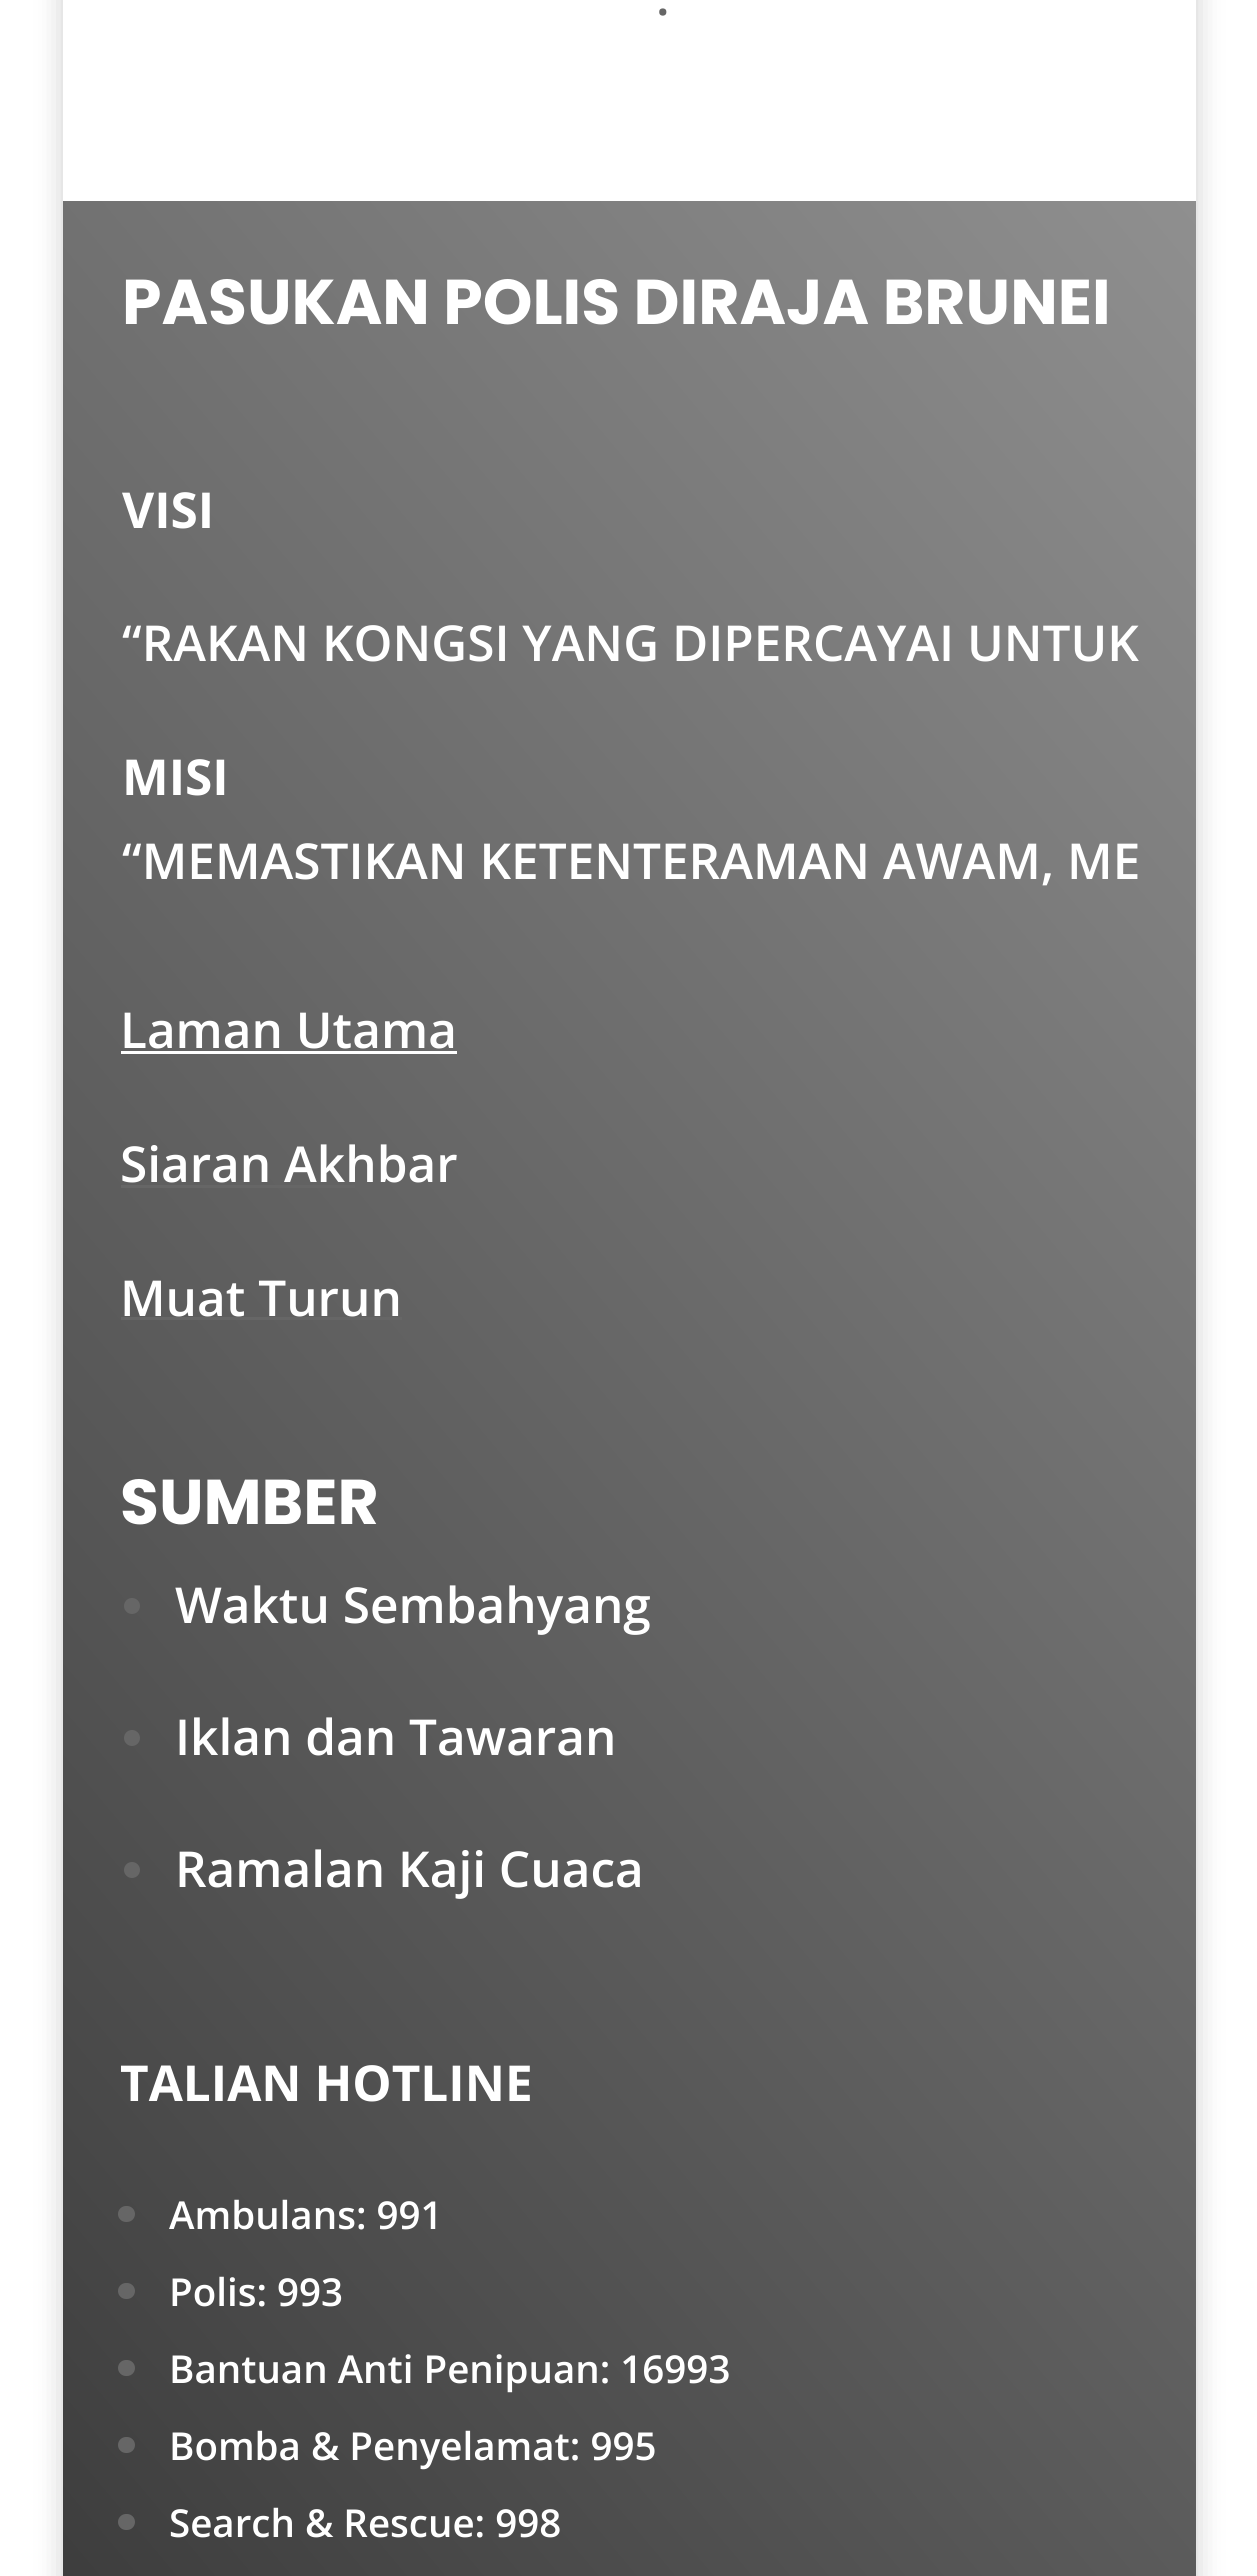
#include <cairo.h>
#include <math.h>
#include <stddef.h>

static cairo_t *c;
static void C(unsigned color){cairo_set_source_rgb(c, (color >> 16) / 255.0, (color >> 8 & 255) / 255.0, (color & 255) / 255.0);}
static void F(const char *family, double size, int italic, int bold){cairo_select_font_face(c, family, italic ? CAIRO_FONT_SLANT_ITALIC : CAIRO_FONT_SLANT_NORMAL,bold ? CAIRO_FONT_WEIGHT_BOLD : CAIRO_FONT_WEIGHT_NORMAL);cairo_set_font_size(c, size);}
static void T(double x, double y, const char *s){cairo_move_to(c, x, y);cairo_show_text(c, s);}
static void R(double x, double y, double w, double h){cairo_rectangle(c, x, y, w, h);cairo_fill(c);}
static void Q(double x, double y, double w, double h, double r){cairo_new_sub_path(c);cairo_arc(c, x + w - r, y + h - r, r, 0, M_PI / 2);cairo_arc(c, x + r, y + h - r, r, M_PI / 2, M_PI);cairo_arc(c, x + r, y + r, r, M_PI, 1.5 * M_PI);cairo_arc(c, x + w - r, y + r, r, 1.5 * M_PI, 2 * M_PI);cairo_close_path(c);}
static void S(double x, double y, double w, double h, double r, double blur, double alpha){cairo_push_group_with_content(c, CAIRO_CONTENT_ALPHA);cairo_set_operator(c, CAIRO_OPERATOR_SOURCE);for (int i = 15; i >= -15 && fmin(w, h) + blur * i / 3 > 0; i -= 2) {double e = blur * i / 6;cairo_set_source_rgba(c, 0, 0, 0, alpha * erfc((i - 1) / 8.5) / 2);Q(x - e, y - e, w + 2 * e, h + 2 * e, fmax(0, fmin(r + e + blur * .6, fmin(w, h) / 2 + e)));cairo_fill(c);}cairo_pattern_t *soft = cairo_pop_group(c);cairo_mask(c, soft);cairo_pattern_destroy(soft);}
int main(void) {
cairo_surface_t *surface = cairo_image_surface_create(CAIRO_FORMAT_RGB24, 1257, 2576);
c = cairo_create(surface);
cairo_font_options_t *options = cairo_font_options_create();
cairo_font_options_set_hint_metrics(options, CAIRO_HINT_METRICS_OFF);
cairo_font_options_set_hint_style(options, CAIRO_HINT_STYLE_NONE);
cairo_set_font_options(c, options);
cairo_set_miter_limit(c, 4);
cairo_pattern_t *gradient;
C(0xffffff);
cairo_paint(c);
C(0x000000);
S(63,-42,1133,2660,0,14,.2);
C(0xffffff);
R(63,0,1133,201);
F("Open Sans SemiBold",49.5,0,0);
C(0x666666);
T(656,15,".");
gradient = cairo_pattern_create_linear(-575,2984,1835,962);
cairo_pattern_add_color_stop_rgba(gradient,0,0.141,0.141,0.141,1);
cairo_pattern_add_color_stop_rgba(gradient,1,0.561,0.561,0.561,1);
cairo_set_source(c,gradient);
cairo_pattern_destroy(gradient);
R(63,201,1133,2375);
F("Poppins",63.25,0,1);
C(0xffffff);
T(122,324,"PASUKAN POLIS DIRAJA BRUNEI");
F("Open Sans",49.5,0,1);
T(122,528,"VISI");
F("Open Sans SemiBold",49.5,0,0);
T(122,661,"“RAKAN KONGSI YANG DIPERCAYAI UNTUK");
F("Open Sans",49.5,0,1);
T(122,795,"MISI");
F("Open Sans SemiBold",49.5,0,0);
T(122,879,"“MEMASTIKAN KETENTERAMAN AWAM, ME");
T(120,1048,"Laman Utama");
R(121,1051,336,3);
T(120,1182,"Siaran Akhbar");
C(0x666666);
R(121,1185,234,3);
C(0xffffff);
T(120,1316,"Muat Turun");
C(0x666666);
R(121,1317,281,3);
F("Poppins",63.25,0,1);
C(0xffffff);
T(120,1524,"SUMBER");
C(0x666666);
cairo_new_path(c);
cairo_arc(c,132,1606,8,0,2 * M_PI);
cairo_fill(c);
F("Open Sans SemiBold",49.5,0,0);
C(0xffffff);
T(175,1623,"Waktu Sembahyang");
C(0x666666);
cairo_new_path(c);
cairo_arc(c,132,1738,8,0,2 * M_PI);
cairo_fill(c);
C(0xffffff);
T(175,1755,"Iklan dan Tawaran");
C(0x666666);
cairo_new_path(c);
cairo_arc(c,132,1870,8,0,2 * M_PI);
cairo_fill(c);
C(0xffffff);
T(175,1887,"Ramalan Kaji Cuaca");
F("Open Sans",49.5,0,1);
T(120,2101,"TALIAN HOTLINE");
C(0x666666);
Q(118,2206,17,16,8);
cairo_fill(c);
F("Open Sans SemiBold",38.5,0,0);
C(0xffffff);
T(169,2229,"Ambulans: 991");
C(0x666666);
Q(118,2283,17,16,8);
cairo_fill(c);
C(0xffffff);
T(169,2306,"Polis: 993");
C(0x666666);
Q(118,2360,17,16,8);
cairo_fill(c);
C(0xffffff);
T(169,2383,"Bantuan Anti Penipuan: 16993");
C(0x666666);
Q(118,2437,17,16,8);
cairo_fill(c);
C(0xffffff);
T(169,2460,"Bomba & Penyelamat: 995");
C(0x666666);
Q(118,2514,17,16,8);
cairo_fill(c);
C(0xffffff);
T(169,2537,"Search & Rescue: 998");
cairo_surface_write_to_png(surface, "o.png");
cairo_font_options_destroy(options);
cairo_destroy(c);
cairo_surface_destroy(surface);
return 0;
}
